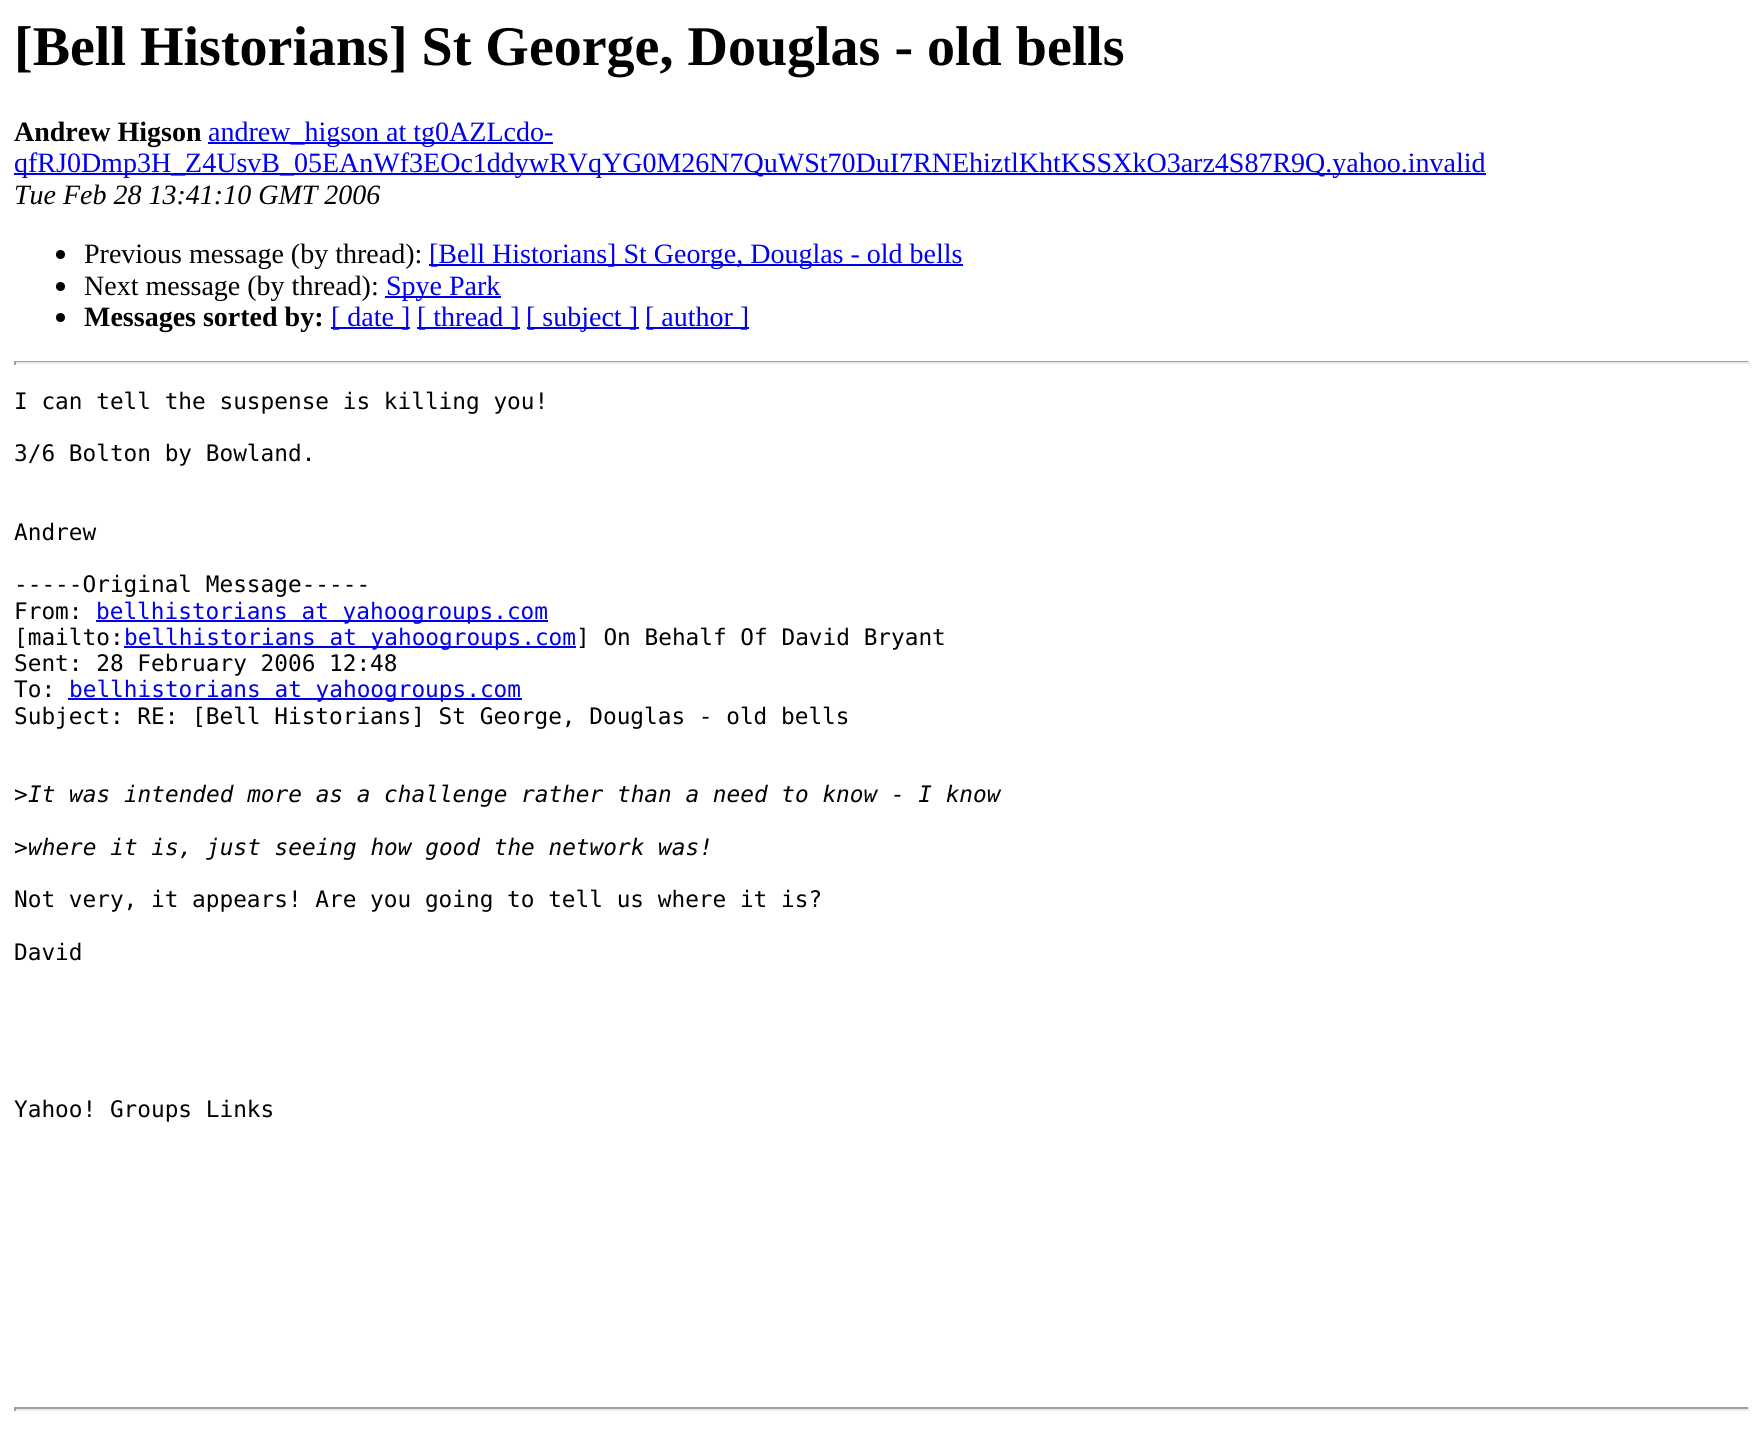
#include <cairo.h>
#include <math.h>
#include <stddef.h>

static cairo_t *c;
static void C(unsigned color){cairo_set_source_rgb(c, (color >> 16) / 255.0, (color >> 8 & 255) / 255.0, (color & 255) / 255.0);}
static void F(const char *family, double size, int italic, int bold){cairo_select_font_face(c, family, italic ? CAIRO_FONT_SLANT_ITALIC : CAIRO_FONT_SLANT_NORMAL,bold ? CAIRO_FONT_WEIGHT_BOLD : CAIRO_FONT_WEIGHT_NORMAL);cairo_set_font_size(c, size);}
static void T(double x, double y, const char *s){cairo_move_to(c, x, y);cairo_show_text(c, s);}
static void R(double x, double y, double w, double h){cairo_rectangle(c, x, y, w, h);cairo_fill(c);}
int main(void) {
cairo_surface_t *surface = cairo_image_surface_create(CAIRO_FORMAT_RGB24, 1763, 1438);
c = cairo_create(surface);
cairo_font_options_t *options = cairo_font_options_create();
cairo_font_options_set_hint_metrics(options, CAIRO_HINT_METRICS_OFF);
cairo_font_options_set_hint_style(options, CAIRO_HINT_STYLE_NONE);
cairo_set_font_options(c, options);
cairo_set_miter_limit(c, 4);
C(0xffffff);
cairo_paint(c);
F("Liberation Serif",56,0,1);
C(0x000000);
T(14,65,"[Bell Historians] St George, Douglas - old bells");
F("Liberation Serif",28,0,1);
T(14,141,"Andrew Higson");
C(0x0000ee);
R(208,142,345,2);
F("Liberation Serif",28,0,0);
T(208,141,"andrew_higson at tg0AZLcdo-");
R(14,173,1472,2);
T(14,172,"qfRJ0Dmp3H_Z4UsvB_05EAnWf3EOc1ddywRVqYG0M26N7QuWSt70DuI7RNEhiztlKhtKSSXkO3arz4S87R9Q.yahoo.invalid");
F("Liberation Serif",28,1,0);
C(0x000000);
T(14,204,"Tue Feb 28 13:41:10 GMT 2006");
cairo_new_path(c);
cairo_arc(c,60.5,254.5,4.5,0,2 * M_PI);
cairo_fill(c);
F("Liberation Serif",28,0,0);
T(84,263,"Previous message (by thread):");
C(0x0000ee);
R(429,264,534,2);
T(429,263,"[Bell Historians] St George, Douglas - old bells");
C(0x000000);
cairo_new_path(c);
cairo_arc(c,60.5,286.5,4.5,0,2 * M_PI);
cairo_fill(c);
T(84,295,"Next message (by thread):");
C(0x0000ee);
R(385,296,116,2);
T(386,295,"Spye Park");
C(0x000000);
cairo_new_path(c);
cairo_arc(c,60.5,317.5,4.5,0,2 * M_PI);
cairo_fill(c);
F("Liberation Serif",28,0,1);
T(84,326,"Messages sorted by:");
C(0x0000ee);
R(331,327,79,2);
F("Liberation Serif",28,0,0);
T(331,326,"[ date ]");
R(417,327,103,2);
T(417,326,"[ thread ]");
R(527,327,112,2);
T(526,326,"[ subject ]");
R(646,327,103,2);
T(645,326,"[ author ]");
C(0x9f9f9f);
R(14,361,1736,1);
C(0xeeeeee);
R(1748,361,2,4);
R(14,362,1736,2);
C(0x9f9f9f);
R(14,361,2,4);
F("DejaVu Sans Mono",22.75,0,0);
C(0x000000);
T(14,409,"I can tell the suspense is killing you!");
T(14,461,"3/6 Bolton by Bowland.");
T(14,540,"Andrew");
T(14,592,"-----Original Message-----");
T(14,619,"From:");
C(0x0000ee);
R(96,620,452,2);
T(96,619,"bellhistorians at yahoogroups.com");
C(0x000000);
T(14,645,"[mailto:");
C(0x0000ee);
R(124,646,452,2);
T(124,645,"bellhistorians at yahoogroups.com");
C(0x000000);
T(576,645,"] On Behalf Of David Bryant");
T(14,671,"Sent: 28 February 2006 12:48");
T(14,697,"To:");
C(0x0000ee);
R(68,698,454,2);
T(69,697,"bellhistorians at yahoogroups.com");
C(0x000000);
T(14,724,"Subject: RE: [Bell Historians] St George, Douglas - old bells");
T(14,802,">");
F("DejaVu Sans Mono",22.75,1,0);
T(28,802,"It was intended more as a challenge rather than a need to know - I know");
F("DejaVu Sans Mono",22.75,0,0);
T(14,855,">");
F("DejaVu Sans Mono",22.75,1,0);
T(28,855,"where it is, just seeing how good the network was!");
F("DejaVu Sans Mono",22.75,0,0);
T(14,907,"Not very, it appears! Are you going to tell us where it is?");
T(14,960,"David");
T(14,1117,"Yahoo! Groups Links");
C(0x9f9f9f);
R(14,1407,1736,2);
C(0xeeeeee);
R(1748,1407,2,4);
R(14,1409,1736,2);
C(0x9f9f9f);
R(14,1407,2,4);
cairo_surface_write_to_png(surface, "o.png");
cairo_font_options_destroy(options);
cairo_destroy(c);
cairo_surface_destroy(surface);
return 0;
}
